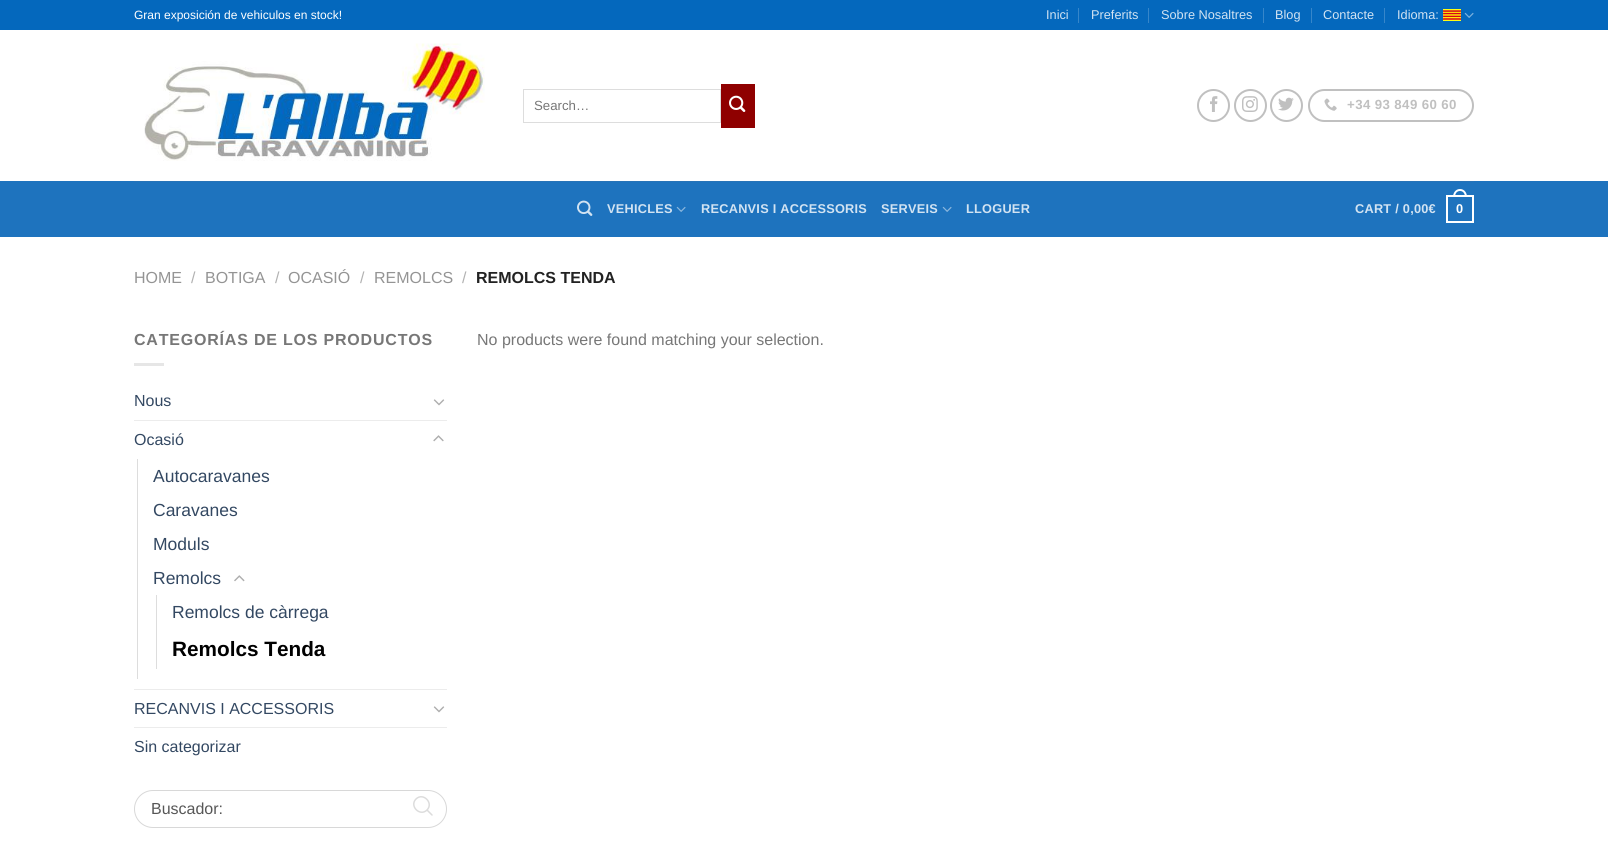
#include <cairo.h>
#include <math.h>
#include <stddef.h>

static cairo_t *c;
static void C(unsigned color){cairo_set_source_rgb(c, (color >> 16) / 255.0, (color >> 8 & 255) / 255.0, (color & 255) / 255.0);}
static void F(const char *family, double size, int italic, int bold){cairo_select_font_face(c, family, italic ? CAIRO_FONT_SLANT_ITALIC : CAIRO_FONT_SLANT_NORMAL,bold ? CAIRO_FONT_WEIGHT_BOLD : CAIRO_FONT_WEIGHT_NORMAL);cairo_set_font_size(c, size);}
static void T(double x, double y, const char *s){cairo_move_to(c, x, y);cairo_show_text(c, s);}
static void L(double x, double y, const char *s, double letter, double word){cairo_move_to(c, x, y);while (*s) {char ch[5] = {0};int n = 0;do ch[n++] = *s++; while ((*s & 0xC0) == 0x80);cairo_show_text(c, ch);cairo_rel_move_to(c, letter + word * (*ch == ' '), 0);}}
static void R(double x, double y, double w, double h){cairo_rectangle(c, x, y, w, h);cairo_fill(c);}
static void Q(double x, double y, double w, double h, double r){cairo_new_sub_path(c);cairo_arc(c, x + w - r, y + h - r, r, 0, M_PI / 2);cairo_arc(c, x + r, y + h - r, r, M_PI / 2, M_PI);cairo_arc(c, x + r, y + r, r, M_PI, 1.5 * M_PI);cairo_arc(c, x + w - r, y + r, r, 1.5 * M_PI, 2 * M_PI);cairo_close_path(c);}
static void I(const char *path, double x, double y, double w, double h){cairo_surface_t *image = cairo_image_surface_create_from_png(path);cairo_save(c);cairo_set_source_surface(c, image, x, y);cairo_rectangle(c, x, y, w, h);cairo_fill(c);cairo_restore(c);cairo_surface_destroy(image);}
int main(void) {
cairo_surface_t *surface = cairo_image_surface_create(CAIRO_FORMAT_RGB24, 1608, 847);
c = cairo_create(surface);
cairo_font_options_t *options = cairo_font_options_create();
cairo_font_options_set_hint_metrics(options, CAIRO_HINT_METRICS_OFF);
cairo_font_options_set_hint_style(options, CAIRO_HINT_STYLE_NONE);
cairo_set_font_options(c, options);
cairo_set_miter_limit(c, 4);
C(0xffffff);
cairo_paint(c);
C(0x0468bd);
R(0,0,1608,30);
F("Liberation Sans",12,0,0);
C(0xffffff);
T(134,19,"Gran exposición de vehiculos en stock!");
F("Liberation Sans",12.75,0,0);
C(0xd2e3f2);
T(1046,19,"Inici");
C(0x3686ca);
R(1078,8,1,15);
C(0xd2e3f2);
T(1091,19,"Preferits");
C(0x3686ca);
R(1148,8,1,15);
C(0xd2e3f2);
T(1161,19,"Sobre Nosaltres");
C(0x3686ca);
R(1263,8,1,15);
C(0xd2e3f2);
T(1275,19,"Blog");
C(0x3686ca);
R(1311,8,1,15);
C(0xd2e3f2);
T(1323,19,"Contacte");
C(0x3686ca);
R(1384,8,1,15);
C(0xd2e3f2);
T(1397,19,"Idioma:");
I("1.png",1443,9,18,12);
I("2.png",1464,12,10,6);
I("3.png",144,43,341,118);
cairo_rectangle(c,523.5,89.5,197,33);
C(0xdddddd);
cairo_set_line_width(c,1);
cairo_stroke(c);
F("Liberation Sans",13.25,0,0);
C(0x777777);
T(534,110,"Search…");
C(0x8f0000);
R(721,84,34,44);
I("4.png",729,95,17,17);
cairo_arc(c,1213.5,105.5,15.5,0,2 * M_PI);
C(0xc0c0c0);
cairo_set_line_width(c,2);
cairo_stroke(c);
I("5.png",1210,96,8,16);
cairo_arc(c,1250.5,105.5,15.5,0,2 * M_PI);
cairo_stroke(c);
I("6.png",1242,96,16,16);
cairo_arc(c,1286.5,105.5,15.5,0,2 * M_PI);
cairo_stroke(c);
I("7.png",1278,97,16,14);
Q(1309,90,164,31,15.5);
cairo_stroke(c);
I("8.png",1324,98,13,13);
F("Liberation Sans",13.25,0,1);
L(1347,109,"+34 93 849 60 60",.4,0);
C(0x1e73be);
R(0,181,1608,56);
C(0x2773b7);
R(134,181,1340,1);
I("9.png",577,200,16,16);
F("Liberation Sans",12.75,0,1);
C(0xd2e3f2);
L(607,213,"VEHICLES",.25,0);
I("10.png",676,206,10,6);
L(701,213,"RECANVIS I ACCESSORIS",.25,0);
L(881,213,"SERVEIS",.25,0);
I("10.png",942,206,10,6);
L(966,213,"LLOGUER",.25,0);
L(1355,213,"CART / 0,00€",.25,0);
cairo_rectangle(c,1447,196,26,26);
C(0xffffff);
cairo_stroke(c);
cairo_set_fill_rule(c,CAIRO_FILL_RULE_EVEN_ODD);
cairo_new_path(c);
cairo_move_to(c,1460,189);
cairo_curve_to(c,1464.5,189,1467,193,1467,197);
cairo_line_to(c,1453,197);
cairo_curve_to(c,1453,193,1455.5,189,1460,189);
cairo_close_path(c);
cairo_move_to(c,1460,191);
cairo_curve_to(c,1463.5,191,1465,194,1465,197);
cairo_line_to(c,1455,197);
cairo_curve_to(c,1455,194,1456.5,191,1460,191);
cairo_close_path(c);
cairo_fill(c);
L(1456,213,"0",.25,0);
F("Liberation Sans",16,0,0);
C(0x949494);
T(134,283,"HOME");
C(0xb2b2b2);
T(191,283,"/");
C(0x949494);
T(205,283,"BOTIGA");
C(0xb2b2b2);
T(275,283,"/");
C(0x949494);
T(288,283,"OCASIÓ");
C(0xb2b2b2);
T(360,283,"/");
C(0x949494);
T(374,283,"REMOLCS");
C(0xb2b2b2);
T(462,283,"/");
F("Liberation Sans",16,0,1);
C(0x222222);
T(476,283,"REMOLCS TENDA");
C(0x777777);
L(134,345,"CATEGORÍAS DE LOS PRODUCTOS",.8,0);
C(0xe6e6e6);
R(134,363,30,3);
F("Liberation Sans",16,0,0);
C(0x334862);
T(134,406,"Nous");
I("11.png",433,399,12,7);
C(0xececec);
R(134,420,313,1);
C(0x334862);
T(134,445,"Ocasió");
I("12.png",433,435,11,7);
C(0xdddddd);
R(137,459,1,220);
F("Liberation Sans",17.5,0,0);
C(0x334862);
T(153,482,"Autocaravanes");
T(153,516,"Caravanes");
T(153,550,"Moduls");
T(153,584,"Remolcs");
I("13.png",234,575,11,7);
C(0xdddddd);
R(156,595,1,74);
C(0x334862);
T(172,618,"Remolcs de càrrega");
F("Liberation Sans",20.75,0,1);
C(0x000000);
T(172,656,"Remolcs Tenda");
C(0xececec);
R(134,689,313,1);
F("Liberation Sans",16,0,0);
C(0x334862);
T(134,714,"RECANVIS I ACCESSORIS");
I("11.png",433,706,12,7);
C(0xececec);
R(134,727,313,1);
C(0x334862);
T(134,752,"Sin categorizar");
Q(134.5,790.5,312,37,18.5);
C(0xd8d8d8);
cairo_set_line_width(c,1);
cairo_stroke(c);
C(0x575757);
T(151,814,"Buscador:");
cairo_new_path(c);
cairo_move_to(c,432,815);
cairo_line_to(c,427,810);
cairo_move_to(c,427,810);
cairo_curve_to(c,434,803,423,792,416,799);
cairo_curve_to(c,409,806,420,817,427,810);
cairo_close_path(c);
C(0xdcdcdc);
cairo_set_line_width(c,1.5);
cairo_set_line_cap(c,CAIRO_LINE_CAP_ROUND);
cairo_set_line_join(c,CAIRO_LINE_JOIN_ROUND);
cairo_stroke(c);
C(0x777777);
T(477,345,"No products were found matching your selection.");
cairo_surface_write_to_png(surface, "o.png");
cairo_font_options_destroy(options);
cairo_destroy(c);
cairo_surface_destroy(surface);
return 0;
}
